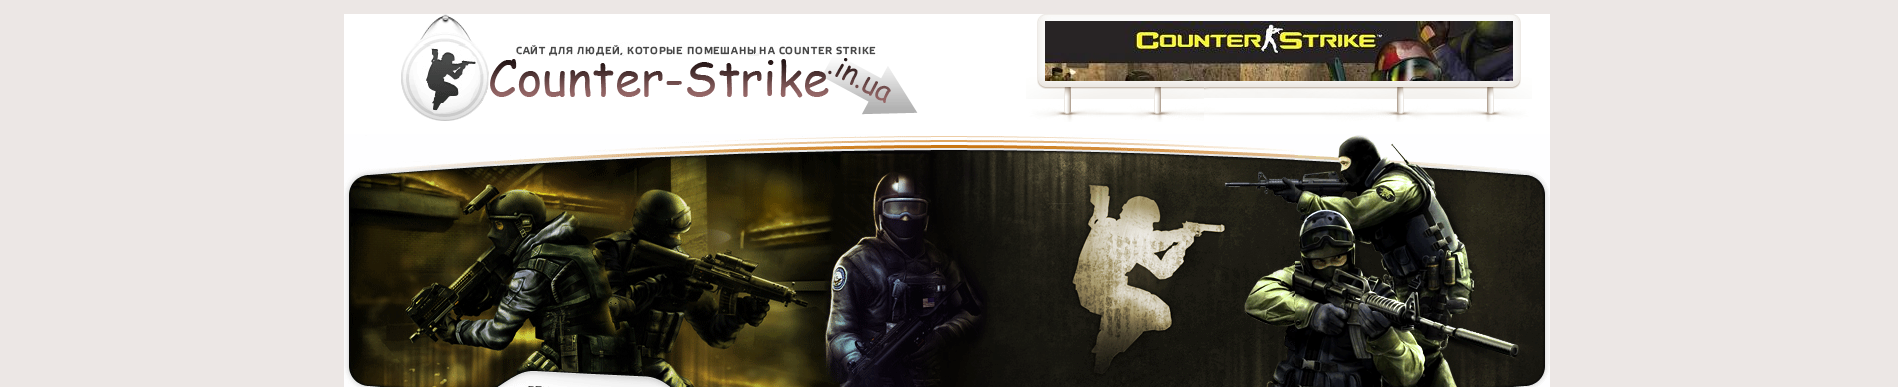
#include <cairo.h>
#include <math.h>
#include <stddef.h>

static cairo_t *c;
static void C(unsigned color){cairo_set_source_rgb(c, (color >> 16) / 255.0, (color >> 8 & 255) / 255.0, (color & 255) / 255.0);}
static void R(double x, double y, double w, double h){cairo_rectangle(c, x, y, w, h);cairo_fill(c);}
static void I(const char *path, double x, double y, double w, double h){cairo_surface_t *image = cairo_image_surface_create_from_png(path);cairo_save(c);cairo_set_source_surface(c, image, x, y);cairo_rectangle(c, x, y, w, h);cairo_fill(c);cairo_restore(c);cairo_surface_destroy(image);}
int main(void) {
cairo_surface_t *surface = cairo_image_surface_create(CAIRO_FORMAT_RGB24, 1898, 387);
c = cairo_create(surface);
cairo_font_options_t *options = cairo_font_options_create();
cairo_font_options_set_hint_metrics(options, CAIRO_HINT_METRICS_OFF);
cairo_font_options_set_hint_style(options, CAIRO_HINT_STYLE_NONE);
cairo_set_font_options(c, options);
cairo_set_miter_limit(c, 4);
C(0xece7e5);
cairo_paint(c);
C(0xffffff);
R(344,14,1206,120);
I("1.png",401,14,517,107);
I("2.png",1026,14,506,108);
I("3.png",1045,21,468,60);
I("4.png",344,134,150,253);
I("5.png",494,134,191,253);
I("6.png",685,134,189,253);
I("7.png",874,134,199,253);
I("8.png",1073,134,222,253);
I("9.png",1295,134,255,253);
I("10.png",528,386,21,1);
cairo_surface_write_to_png(surface, "o.png");
cairo_font_options_destroy(options);
cairo_destroy(c);
cairo_surface_destroy(surface);
return 0;
}
